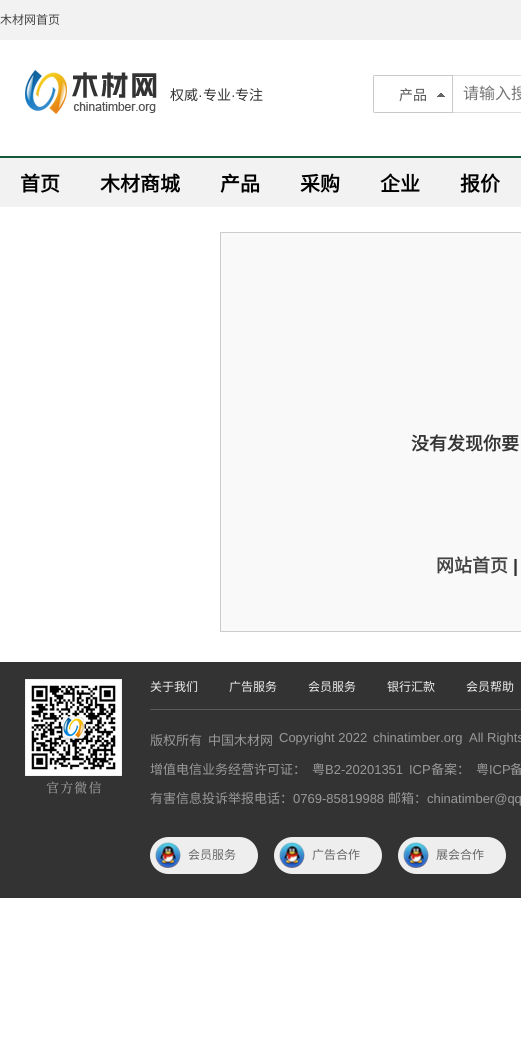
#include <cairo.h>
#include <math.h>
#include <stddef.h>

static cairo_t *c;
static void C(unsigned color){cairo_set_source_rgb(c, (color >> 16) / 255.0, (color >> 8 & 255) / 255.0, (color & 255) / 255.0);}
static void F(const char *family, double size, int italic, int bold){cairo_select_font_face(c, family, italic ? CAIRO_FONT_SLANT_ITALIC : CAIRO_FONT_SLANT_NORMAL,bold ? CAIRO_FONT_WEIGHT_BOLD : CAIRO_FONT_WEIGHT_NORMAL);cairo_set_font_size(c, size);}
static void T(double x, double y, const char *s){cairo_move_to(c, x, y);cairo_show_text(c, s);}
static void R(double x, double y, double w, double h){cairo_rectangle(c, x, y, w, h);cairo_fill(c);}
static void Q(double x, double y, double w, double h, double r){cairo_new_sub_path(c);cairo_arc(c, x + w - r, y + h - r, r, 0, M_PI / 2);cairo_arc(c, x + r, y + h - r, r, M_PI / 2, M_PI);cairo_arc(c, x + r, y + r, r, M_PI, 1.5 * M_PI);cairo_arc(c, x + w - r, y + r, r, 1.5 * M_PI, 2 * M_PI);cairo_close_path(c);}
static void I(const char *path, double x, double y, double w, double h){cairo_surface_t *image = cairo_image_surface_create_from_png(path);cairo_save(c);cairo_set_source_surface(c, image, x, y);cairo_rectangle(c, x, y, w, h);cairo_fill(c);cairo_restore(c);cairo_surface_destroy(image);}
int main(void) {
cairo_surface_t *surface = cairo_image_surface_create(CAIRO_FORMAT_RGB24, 521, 1062);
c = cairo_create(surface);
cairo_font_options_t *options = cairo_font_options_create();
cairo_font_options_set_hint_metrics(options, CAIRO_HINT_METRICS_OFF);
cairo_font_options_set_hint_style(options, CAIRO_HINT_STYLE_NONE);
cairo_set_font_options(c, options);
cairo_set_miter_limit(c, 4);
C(0xffffff);
cairo_paint(c);
C(0xf2f2f2);
R(0,0,521,40);
F("Noto Sans CJK SC",12,0,0);
C(0x444444);
T(0,24,"木材网首页");
I("1.png",25,70,132,44);
F("Noto Sans CJK SC",14,0,0);
C(0x333333);
T(170,100,"权威");
F("Liberation Sans",14,0,0);
T(198,100,"·");
F("Noto Sans CJK SC",14,0,0);
T(203,100,"专业");
F("Liberation Sans",14,0,0);
T(231,100,"·");
F("Noto Sans CJK SC",14,0,0);
T(235,100,"专注");
cairo_new_path(c);
cairo_move_to(c,375,75.5);
cairo_line_to(c,452.5,75.5);
cairo_line_to(c,452.5,112.5);
cairo_line_to(c,375,112.5);
cairo_curve_to(c,374,112.5,373.5,112,373.5,111);
cairo_line_to(c,373.5,77);
cairo_curve_to(c,373.5,76,374,75.5,375,75.5);
cairo_close_path(c);
C(0xc9c9c9);
cairo_set_line_width(c,1);
cairo_stroke(c);
C(0x555555);
T(399,100,"产品");
I("2.png",437,93,8,4);
C(0xdddddd);
R(453,75,68,1);
R(453,112,68,1);
F("Noto Sans CJK SC",16,0,0);
C(0x757575);
T(463,99,"请输入搜");
C(0xf2f2f2);
R(0,158,521,49);
C(0x125a39);
R(0,156,521,2);
F("Noto Sans CJK SC",20,0,1);
C(0x000000);
T(20,191,"首页");
T(100,191,"木材商城");
T(220,191,"产品");
T(300,191,"采购");
T(380,191,"企业");
T(460,191,"报价");
C(0xf9f9f9);
cairo_rectangle(c,220.5,232.5,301,399);
cairo_fill_preserve(c);
C(0xcccccc);
cairo_stroke(c);
F("Noto Sans CJK SC",18,0,1);
C(0x333333);
T(411,450,"没有发现你要");
C(0x444444);
T(436,572,"网站首页");
F("Liberation Sans",18,0,1);
C(0x333333);
T(513,572,"|");
R(0,662,521,236);
I("3.png",25,679,97,115);
C(0x5a5a5a);
R(150,709,371,1);
F("Noto Sans CJK SC",12,0,0);
C(0xeeeeee);
T(150,691,"关于我们");
T(229,691,"广告服务");
T(308,691,"会员服务");
T(387,691,"银行汇款");
T(466,691,"会员帮助");
F("Noto Sans CJK SC",13,0,0);
C(0x999999);
T(150,745,"版权所有");
T(208,745,"中国木材网");
F("Liberation Sans",13,0,0);
T(279,742,"Copyright 2022");
T(373,742,"chinatimber.org");
T(469,742,"All Rights");
F("Noto Sans CJK SC",13,0,0);
T(150,774,"增值电信业务经营许可证：");
T(312,774,"粤");
F("Liberation Sans",13,0,0);
T(325,774,"B2-20201351");
T(409,774,"ICP");
F("Noto Sans CJK SC",13,0,0);
T(431,774,"备案：");
T(476,774,"粤");
F("Liberation Sans",13,0,0);
T(489,774,"ICP");
F("Noto Sans CJK SC",13,0,0);
T(510,774,"备");
T(150,803,"有害信息投诉举报电话：");
F("Liberation Sans",13,0,0);
T(293,803,"0769-85819988");
F("Noto Sans CJK SC",13,0,0);
T(388,803,"邮箱：");
F("Liberation Sans",13,0,0);
T(427,803,"chinatimber@qq");
C(0xeeeeee);
Q(150,837,108,37,18.5);
cairo_fill(c);
I("4.png",155,842,26,26);
F("Noto Sans CJK SC",12,0,0);
C(0x666666);
T(188,859,"会员服务");
C(0xeeeeee);
Q(274,837,108,37,18.5);
cairo_fill(c);
I("4.png",279,842,26,26);
C(0x666666);
T(312,859,"广告合作");
C(0xeeeeee);
Q(398,837,108,37,18.5);
cairo_fill(c);
I("5.png",403,842,26,26);
C(0x666666);
T(436,859,"展会合作");
cairo_surface_write_to_png(surface, "o.png");
cairo_font_options_destroy(options);
cairo_destroy(c);
cairo_surface_destroy(surface);
return 0;
}
